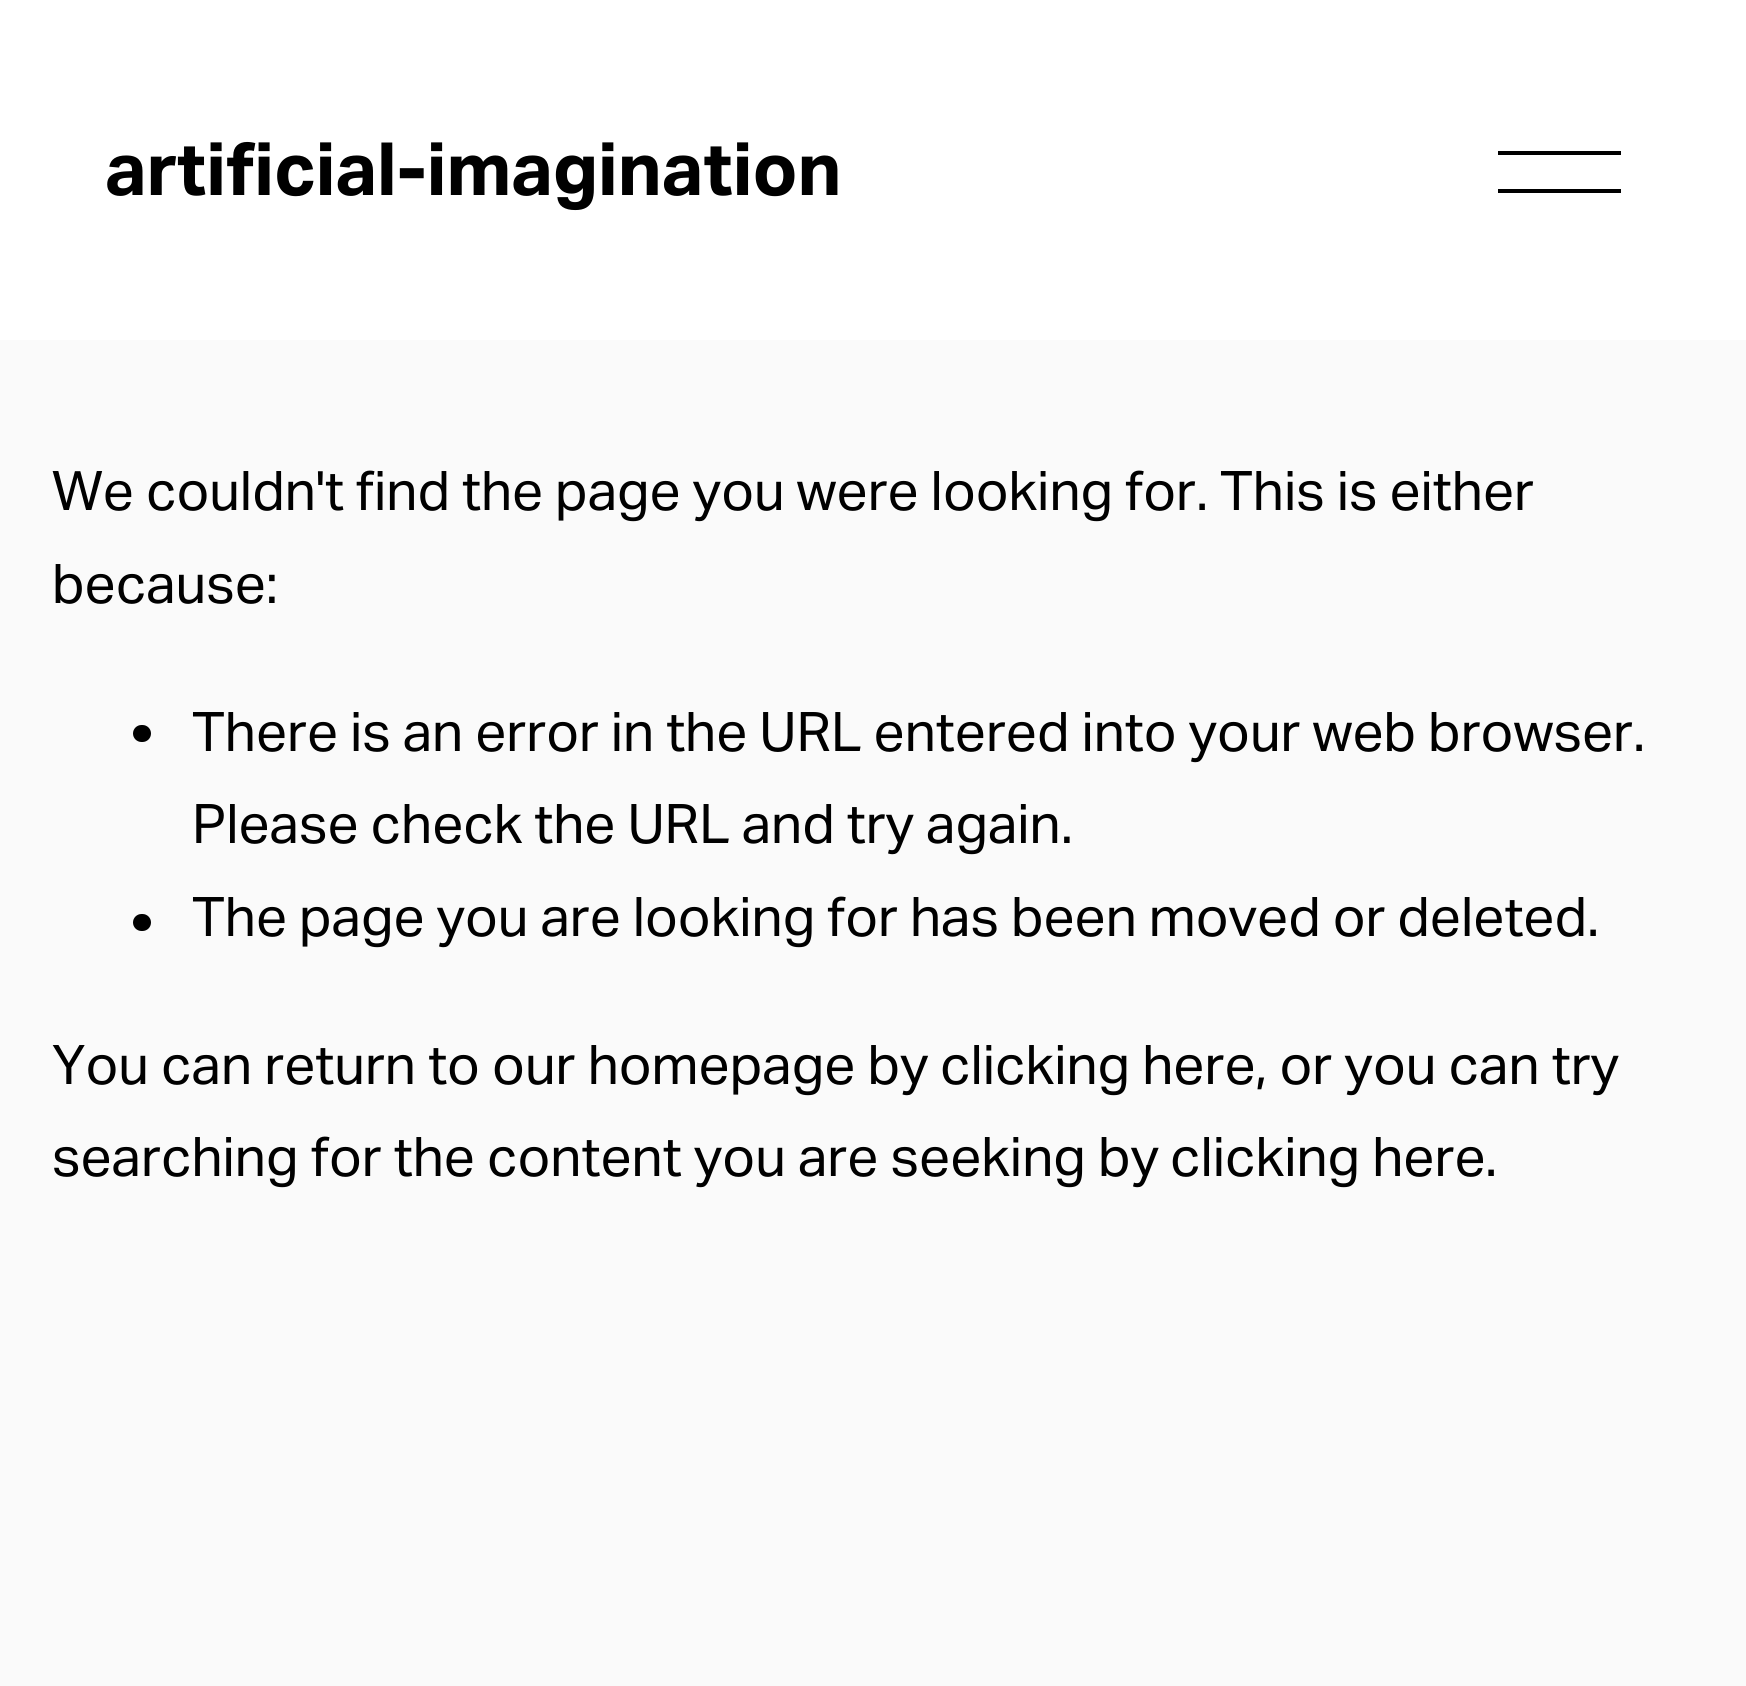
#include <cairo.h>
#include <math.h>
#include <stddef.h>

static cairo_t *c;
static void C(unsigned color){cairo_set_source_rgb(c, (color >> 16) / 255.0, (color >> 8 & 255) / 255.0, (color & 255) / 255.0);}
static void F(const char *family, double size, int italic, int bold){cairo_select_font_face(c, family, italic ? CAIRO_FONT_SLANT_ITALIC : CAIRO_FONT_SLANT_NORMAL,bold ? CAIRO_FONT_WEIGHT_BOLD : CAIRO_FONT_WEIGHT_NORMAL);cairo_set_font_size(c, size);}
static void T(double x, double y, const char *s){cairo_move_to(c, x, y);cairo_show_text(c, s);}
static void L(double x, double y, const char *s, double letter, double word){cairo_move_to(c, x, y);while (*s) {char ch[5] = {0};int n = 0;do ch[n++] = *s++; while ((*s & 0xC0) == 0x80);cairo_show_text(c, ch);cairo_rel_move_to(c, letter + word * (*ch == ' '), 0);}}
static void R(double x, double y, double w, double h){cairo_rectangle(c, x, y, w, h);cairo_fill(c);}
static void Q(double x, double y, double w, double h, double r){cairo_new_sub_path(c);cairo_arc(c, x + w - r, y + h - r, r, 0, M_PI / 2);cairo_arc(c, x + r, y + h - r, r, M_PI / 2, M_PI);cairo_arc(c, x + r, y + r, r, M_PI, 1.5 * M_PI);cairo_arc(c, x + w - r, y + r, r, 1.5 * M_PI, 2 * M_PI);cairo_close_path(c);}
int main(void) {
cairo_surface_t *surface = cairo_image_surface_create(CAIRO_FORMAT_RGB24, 1746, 1686);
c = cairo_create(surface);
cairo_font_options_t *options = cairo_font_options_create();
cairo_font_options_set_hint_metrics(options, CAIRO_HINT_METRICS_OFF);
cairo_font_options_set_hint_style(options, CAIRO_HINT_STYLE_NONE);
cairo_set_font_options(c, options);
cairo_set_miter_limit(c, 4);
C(0xfafafa);
cairo_paint(c);
C(0xffffff);
R(0,0,1746,340);
F("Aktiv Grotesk",73.5,0,1);
C(0x000000);
T(105,195,"artificial-imagination");
R(1498,151,123,4);
R(1498,189,123,4);
F("Aktiv Grotesk",54.6,0,0);
L(52,510,"We couldn't find the page you were looking for. This is either",0,-.25);
T(52,603,"because:");
Q(133,725,18,17,8.5);
cairo_fill(c);
L(192,751,"There is an error in the URL entered into your web browser.",0,-.25);
L(192,843,"Please check the URL and try again.",0,-.25);
Q(133,914,18,17,8.5);
cairo_fill(c);
L(192,936,"The page you are looking for has been moved or deleted.",0,-.25);
T(52,1084,"You can return to our homepage by");
T(940,1084,"clicking here");
T(1255,1084,", or you can try");
T(52,1176,"searching for the");
T(487,1176,"content you are seeking by");
T(1170,1176,"clicking here");
T(1485,1176,".");
cairo_surface_write_to_png(surface, "o.png");
cairo_font_options_destroy(options);
cairo_destroy(c);
cairo_surface_destroy(surface);
return 0;
}
